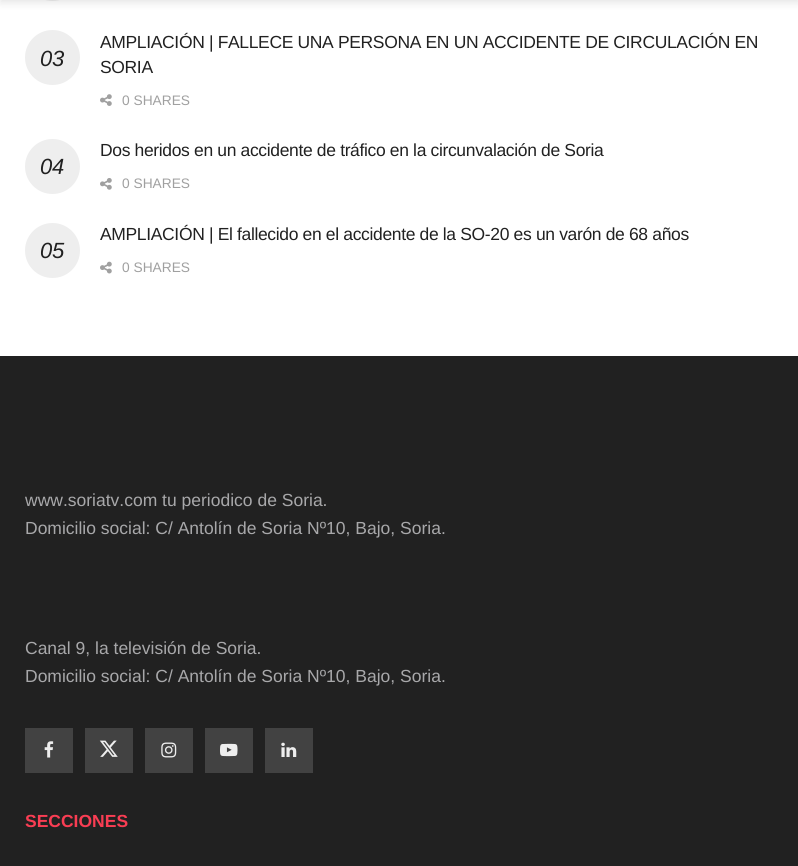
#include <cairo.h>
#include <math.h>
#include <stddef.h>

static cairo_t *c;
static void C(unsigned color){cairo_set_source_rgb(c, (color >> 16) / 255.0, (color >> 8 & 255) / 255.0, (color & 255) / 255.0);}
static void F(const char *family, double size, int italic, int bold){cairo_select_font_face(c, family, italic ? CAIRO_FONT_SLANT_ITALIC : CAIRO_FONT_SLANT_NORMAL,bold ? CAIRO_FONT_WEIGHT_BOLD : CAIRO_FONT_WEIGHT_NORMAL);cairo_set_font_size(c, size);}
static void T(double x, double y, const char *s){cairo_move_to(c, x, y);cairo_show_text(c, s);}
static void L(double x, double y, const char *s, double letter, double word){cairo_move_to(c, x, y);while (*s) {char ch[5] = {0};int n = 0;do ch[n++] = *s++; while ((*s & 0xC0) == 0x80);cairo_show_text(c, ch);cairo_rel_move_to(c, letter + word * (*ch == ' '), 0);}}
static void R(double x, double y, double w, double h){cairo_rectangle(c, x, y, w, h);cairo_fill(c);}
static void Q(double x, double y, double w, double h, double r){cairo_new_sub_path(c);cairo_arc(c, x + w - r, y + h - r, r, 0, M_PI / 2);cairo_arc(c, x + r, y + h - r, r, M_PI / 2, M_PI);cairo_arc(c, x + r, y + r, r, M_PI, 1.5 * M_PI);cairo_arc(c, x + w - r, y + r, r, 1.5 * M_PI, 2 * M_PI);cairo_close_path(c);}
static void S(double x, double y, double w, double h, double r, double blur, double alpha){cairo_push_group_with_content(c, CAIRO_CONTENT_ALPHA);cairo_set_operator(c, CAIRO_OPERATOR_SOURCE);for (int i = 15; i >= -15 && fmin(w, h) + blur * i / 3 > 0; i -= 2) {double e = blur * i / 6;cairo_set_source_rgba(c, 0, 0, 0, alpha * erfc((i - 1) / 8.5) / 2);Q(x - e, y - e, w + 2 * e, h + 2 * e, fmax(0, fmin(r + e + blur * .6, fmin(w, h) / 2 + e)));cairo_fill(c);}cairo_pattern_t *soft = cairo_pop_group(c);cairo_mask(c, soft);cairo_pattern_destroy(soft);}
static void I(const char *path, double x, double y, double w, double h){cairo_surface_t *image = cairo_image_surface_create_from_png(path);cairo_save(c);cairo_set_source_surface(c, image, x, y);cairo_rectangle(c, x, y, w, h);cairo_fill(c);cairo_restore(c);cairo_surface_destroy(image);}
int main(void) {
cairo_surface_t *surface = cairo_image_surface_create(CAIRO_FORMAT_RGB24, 798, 866);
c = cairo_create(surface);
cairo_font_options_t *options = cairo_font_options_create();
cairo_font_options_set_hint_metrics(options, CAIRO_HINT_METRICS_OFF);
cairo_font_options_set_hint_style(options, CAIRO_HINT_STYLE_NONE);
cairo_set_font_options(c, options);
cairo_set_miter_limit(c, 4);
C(0xffffff);
cairo_paint(c);
C(0xeeeeee);
Q(25,-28,55,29,27.5);
cairo_fill(c);
C(0x000000);
S(0,-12,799,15,0,4,.1);
F("Liberation Sans",17.5,0,0);
C(0x212121);
L(100,48,"AMPLIACIÓN | FALLECE UNA PERSONA EN UN ACCIDENTE DE CIRCULACIÓN EN",-.35,0);
C(0xeeeeee);
cairo_new_path(c);
cairo_arc(c,52.5,57.5,27.5,0,2 * M_PI);
cairo_fill(c);
F("Liberation Sans",22,1,0);
C(0x212121);
L(40,66,"03",-.35,0);
F("Liberation Sans",17.5,0,0);
L(100,73,"SORIA",-.35,0);
I("1.png",100,94,12,12);
F("Liberation Sans",13.75,0,0);
C(0xa0a0a0);
T(122,105,"0 SHARES");
F("Liberation Sans",17.5,0,0);
C(0x212121);
L(100,156,"Dos heridos en un accidente de tráfico en la circunvalación de Soria",-.35,0);
C(0xeeeeee);
cairo_new_path(c);
cairo_arc(c,52.5,166.5,27.5,0,2 * M_PI);
cairo_fill(c);
F("Liberation Sans",22,1,0);
C(0x212121);
L(40,174,"04",-.35,0);
I("2.png",100,178,12,12);
F("Liberation Sans",13.75,0,0);
C(0xa0a0a0);
T(122,188,"0 SHARES");
F("Liberation Sans",17.5,0,0);
C(0x212121);
L(100,240,"AMPLIACIÓN | El fallecido en el accidente de la SO-20 es un varón de 68 años",-.35,0);
C(0xeeeeee);
cairo_new_path(c);
cairo_arc(c,52.5,250.5,27.5,0,2 * M_PI);
cairo_fill(c);
F("Liberation Sans",22,1,0);
C(0x212121);
L(40,258,"05",-.35,0);
I("3.png",100,261,12,13);
F("Liberation Sans",13.75,0,0);
C(0xa0a0a0);
T(122,272,"0 SHARES");
C(0x212121);
R(0,356,798,510);
F("Liberation Sans",17.5,0,0);
C(0xa8a8aa);
T(25,506,"www.soriatv.com tu periodico de Soria.");
T(25,534,"Domicilio social: C/ Antolín de Soria Nº10, Bajo, Soria.");
T(25,654,"Canal 9, la televisión de Soria.");
T(25,682,"Domicilio social: C/ Antolín de Soria Nº10, Bajo, Soria.");
C(0x424242);
R(25,728,48,45);
I("4.png",44,741,10,17);
R(85,728,48,45);
I("5.png",99,740,19,17);
R(145,728,48,45);
I("6.png",161,742,16,16);
R(205,728,48,45);
I("7.png",220,743,18,14);
R(265,728,48,45);
I("8.png",281,742,16,15);
F("Liberation Sans",17.5,0,1);
C(0xf93d53);
T(25,827,"SECCIONES");
cairo_surface_write_to_png(surface, "o.png");
cairo_font_options_destroy(options);
cairo_destroy(c);
cairo_surface_destroy(surface);
return 0;
}
